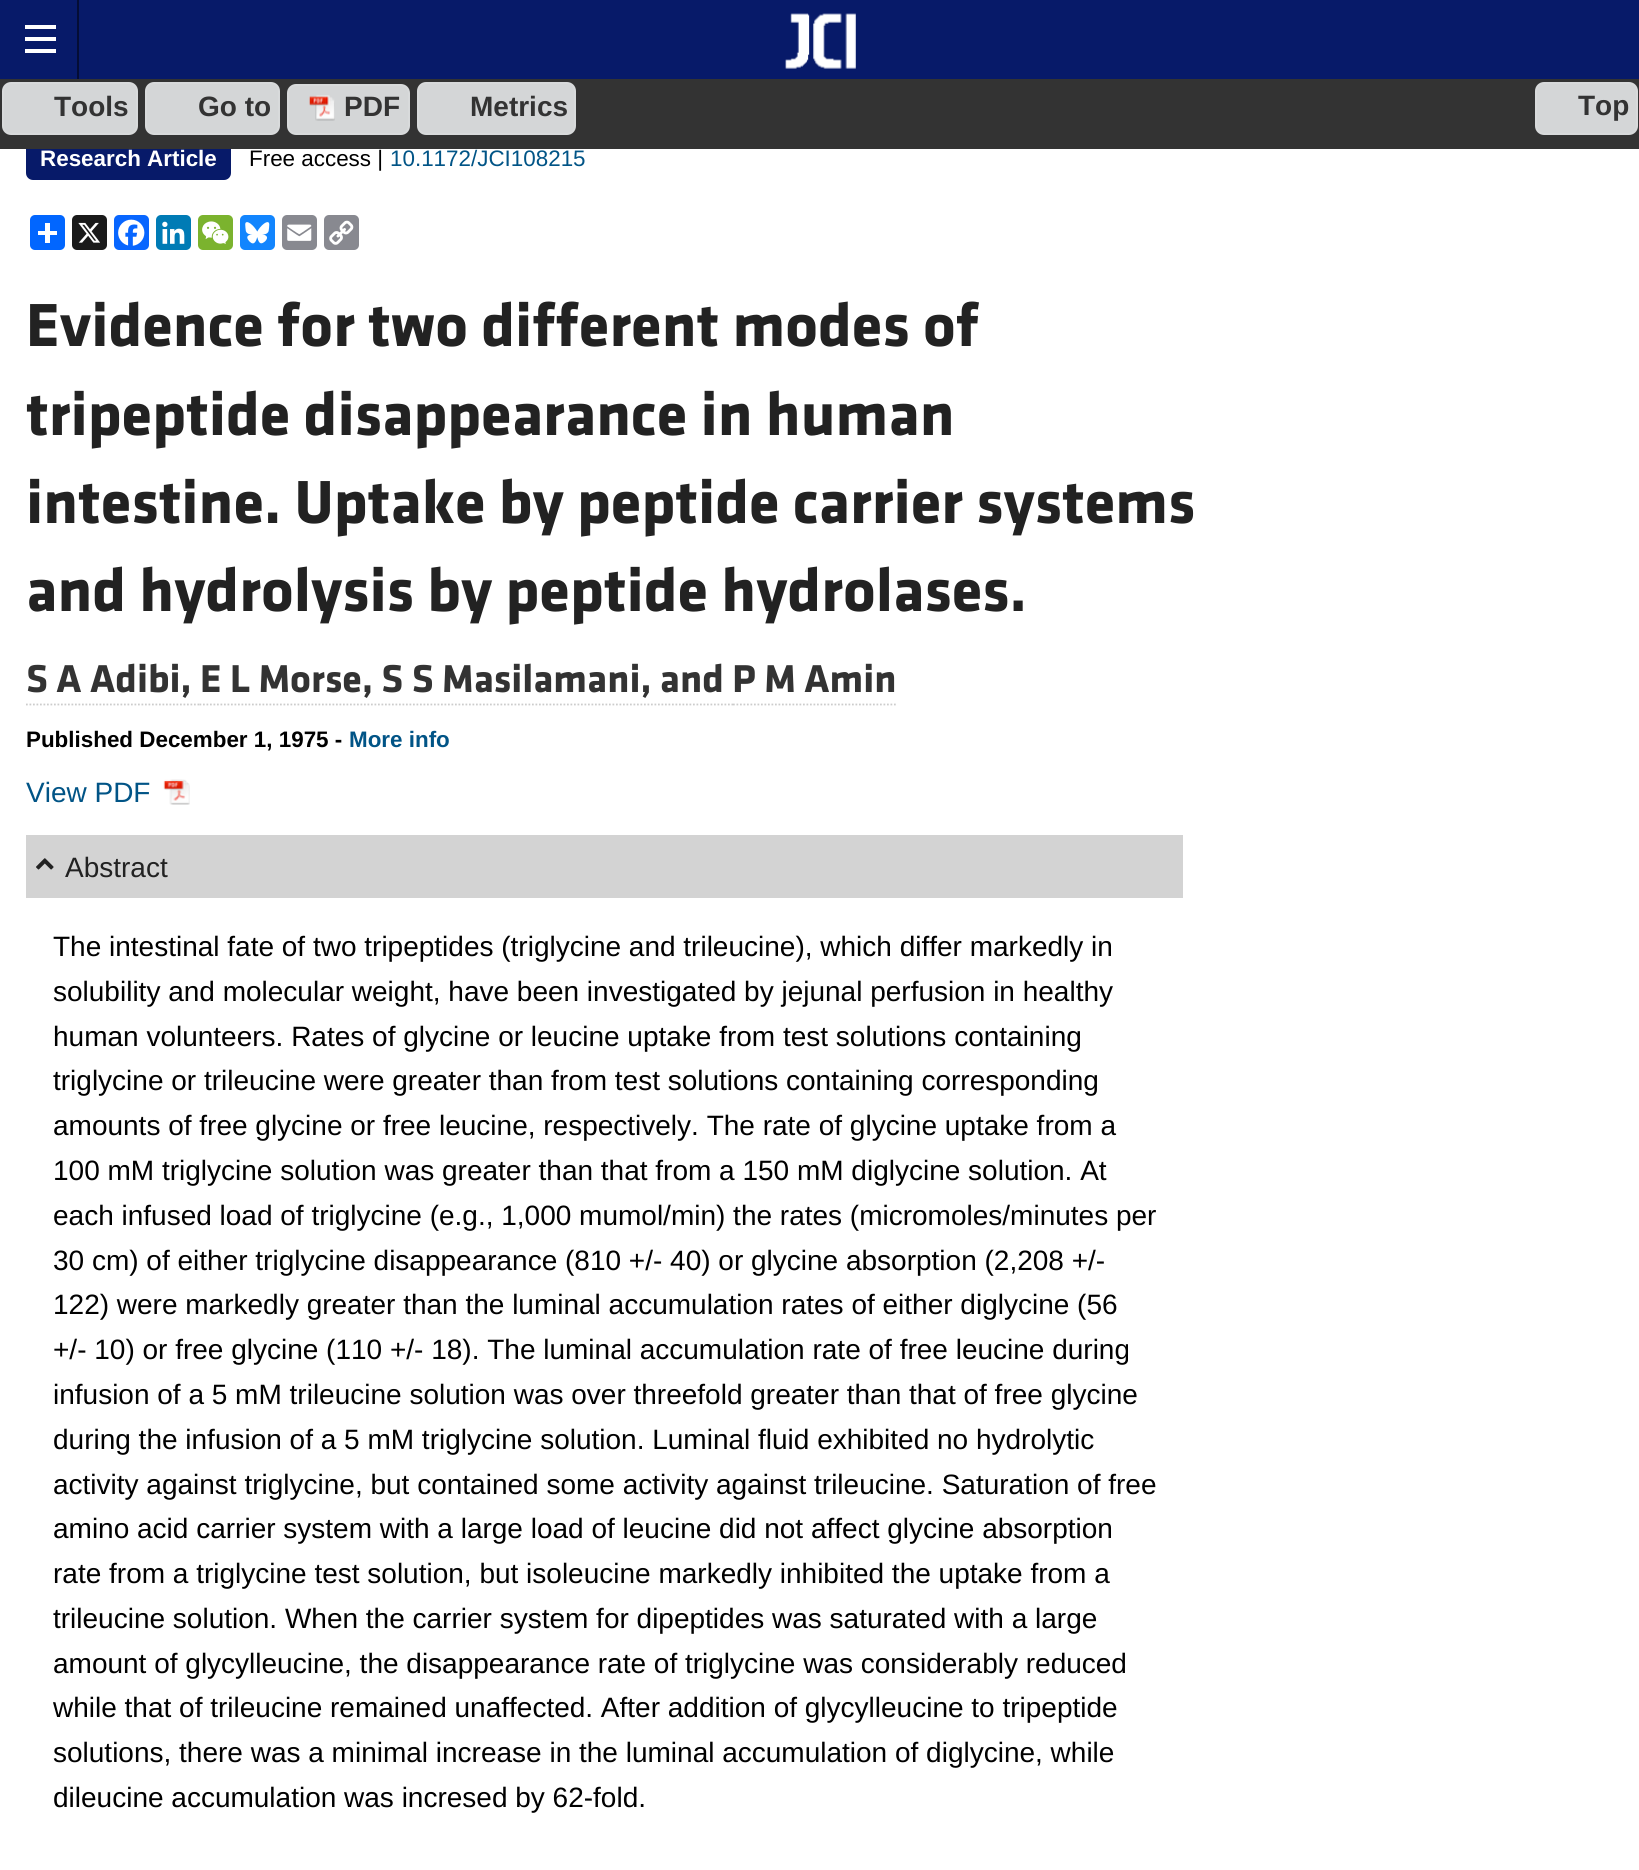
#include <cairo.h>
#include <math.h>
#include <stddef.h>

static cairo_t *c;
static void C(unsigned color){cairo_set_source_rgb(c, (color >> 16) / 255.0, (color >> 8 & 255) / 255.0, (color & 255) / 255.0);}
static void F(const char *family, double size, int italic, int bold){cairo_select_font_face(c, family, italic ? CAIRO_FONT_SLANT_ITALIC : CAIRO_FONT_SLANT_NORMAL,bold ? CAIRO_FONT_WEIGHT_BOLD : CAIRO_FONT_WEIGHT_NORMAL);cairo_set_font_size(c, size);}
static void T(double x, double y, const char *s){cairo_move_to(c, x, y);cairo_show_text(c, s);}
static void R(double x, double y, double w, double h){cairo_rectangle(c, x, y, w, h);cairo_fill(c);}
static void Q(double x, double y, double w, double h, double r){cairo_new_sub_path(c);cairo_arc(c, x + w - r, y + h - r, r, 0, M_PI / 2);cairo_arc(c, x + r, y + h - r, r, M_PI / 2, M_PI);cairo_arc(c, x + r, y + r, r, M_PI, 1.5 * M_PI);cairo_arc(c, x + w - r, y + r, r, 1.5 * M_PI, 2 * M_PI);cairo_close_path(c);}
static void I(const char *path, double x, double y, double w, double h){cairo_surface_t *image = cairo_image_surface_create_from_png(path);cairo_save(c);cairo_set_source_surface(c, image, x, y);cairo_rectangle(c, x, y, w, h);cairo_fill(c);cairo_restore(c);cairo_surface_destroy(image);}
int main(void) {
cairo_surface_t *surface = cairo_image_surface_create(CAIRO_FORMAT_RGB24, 1639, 1870);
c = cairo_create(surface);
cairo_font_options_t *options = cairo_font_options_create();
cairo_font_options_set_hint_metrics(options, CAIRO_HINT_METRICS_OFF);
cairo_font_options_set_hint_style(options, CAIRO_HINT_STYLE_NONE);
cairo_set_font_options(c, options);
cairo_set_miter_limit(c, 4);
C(0xffffff);
cairo_paint(c);
C(0x071a69);
R(0,0,1639,79);
C(0x040d35);
R(77,0,2,79);
C(0xffffff);
R(25,49,31,4);
R(25,37,31,4);
R(25,25,31,4);
I("1.png",785,13,71,56);
C(0x071a69);
Q(26,142,205,38,7);
cairo_fill(c);
C(0x333333);
R(0,79,1639,70);
C(0xd4d6d7);
Q(3,83,134,51,8);
cairo_fill_preserve(c);
C(0xd8dadb);
cairo_stroke(c);
F("Liberation Sans",28,0,1);
C(0x333333);
T(54,116,"Tools");
C(0xd4d6d7);
Q(146,83,133,51,8);
cairo_fill_preserve(c);
C(0xd8dadb);
cairo_stroke(c);
C(0x333333);
T(198,116,"Go to");
C(0xd4d6d7);
Q(288,85,121,49,8);
cairo_fill_preserve(c);
C(0xd8dadb);
cairo_stroke(c);
I("2.png",309,95,26,26);
C(0x333333);
T(344,116,"PDF");
C(0xd4d6d7);
Q(418,83,157,51,8);
cairo_fill_preserve(c);
C(0xd8dadb);
cairo_stroke(c);
C(0x333333);
T(470,116,"Metrics");
C(0xd4d6d7);
Q(1536,83,101,51,8);
cairo_fill_preserve(c);
C(0xd8dadb);
cairo_stroke(c);
C(0x333333);
T(1578,115,"Top");
F("Liberation Sans",22.4,0,1);
C(0xffffff);
T(40,166,"Research Article");
F("Liberation Sans",22.4,0,0);
C(0x000000);
T(249,166,"Free access |");
C(0x015486);
T(390,166,"10.1172/JCI108215");
C(0x0166ff);
Q(30,215,35,35,5);
cairo_fill(c);
C(0xffffff);
R(45,223,5,20);
R(38,231,19,4);
C(0x1a1a1a);
Q(72,215,35,35,5);
cairo_fill(c);
I("3.png",78,222,22,21);
C(0x0866ff);
Q(114,215,35,35,5);
cairo_fill(c);
I("4.png",118,219,27,27);
C(0x007bb5);
Q(156,215,35,35,5);
cairo_fill(c);
I("5.png",162,221,23,23);
C(0x7bb32e);
Q(198,215,35,35,5);
cairo_fill(c);
I("6.png",202,221,27,23);
C(0x1285fe);
Q(240,215,35,35,5);
cairo_fill(c);
I("7.png",245,222,25,22);
C(0x888990);
Q(282,215,35,35,5);
cairo_fill(c);
I("8.png",287,224,25,17);
Q(324,215,35,35,5);
cairo_fill(c);
I("9.png",329,220,25,25);
F("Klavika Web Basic",63,0,1);
C(0x222222);
T(26,346,"Evidence for two different modes of");
T(26,435,"tripeptide disappearance in human");
T(26,523,"intestine. Uptake by peptide carrier systems");
T(26,611,"and hydrolysis by peptide hydrolases.");
F("Klavika Web Basic",40.25,0,1);
C(0x333333);
T(26,692,"S A Adibi, E L Morse, S S Masilamani, and P M Amin");
cairo_new_path(c);
cairo_move_to(c,26,704.5);
cairo_line_to(c,199.5,704.5);
C(0xcccccc);
cairo_set_line_width(c,1.8);
cairo_set_dash(c,(double[]){1.75,1.75},2,0);
cairo_stroke(c);
cairo_new_path(c);
cairo_move_to(c,199.5,704.5);
cairo_line_to(c,381.5,704.5);
cairo_stroke(c);
cairo_new_path(c);
cairo_move_to(c,381.5,704.5);
cairo_line_to(c,733,704.5);
cairo_stroke(c);
cairo_new_path(c);
cairo_move_to(c,733,704.5);
cairo_line_to(c,896,704.5);
cairo_stroke(c);
F("Liberation Sans",22.4,0,1);
C(0x000000);
T(26,747,"Published December 1, 1975 -");
C(0x015486);
T(349,747,"More info");
F("Liberation Sans",28,0,0);
T(26,802,"View PDF");
I("10.png",163,779,27,26);
C(0xd3d3d3);
R(26,835,1157,63);
I("11.png",36,858,18,12);
C(0x222222);
T(65,877,"Abstract");
C(0x000000);
T(53,956,"The intestinal fate of two tripeptides (triglycine and trileucine), which differ markedly in");
T(53,1001,"solubility and molecular weight, have been investigated by jejunal perfusion in healthy");
T(53,1046,"human volunteers. Rates of glycine or leucine uptake from test solutions containing");
T(53,1090,"triglycine or trileucine were greater than from test solutions containing corresponding");
T(53,1135,"amounts of free glycine or free leucine, respectively. The rate of glycine uptake from a");
T(53,1180,"100 mM triglycine solution was greater than that from a 150 mM diglycine solution. At");
T(53,1225,"each infused load of triglycine (e.g., 1,000 mumol/min) the rates (micromoles/minutes per");
T(53,1270,"30 cm) of either triglycine disappearance (810 +/- 40) or glycine absorption (2,208 +/-");
T(53,1314,"122) were markedly greater than the luminal accumulation rates of either diglycine (56");
T(53,1359,"+/- 10) or free glycine (110 +/- 18). The luminal accumulation rate of free leucine during");
T(53,1404,"infusion of a 5 mM trileucine solution was over threefold greater than that of free glycine");
T(53,1449,"during the infusion of a 5 mM triglycine solution. Luminal fluid exhibited no hydrolytic");
T(53,1494,"activity against triglycine, but contained some activity against trileucine. Saturation of free");
T(53,1538,"amino acid carrier system with a large load of leucine did not affect glycine absorption");
T(53,1583,"rate from a triglycine test solution, but isoleucine markedly inhibited the uptake from a");
T(53,1628,"trileucine solution. When the carrier system for dipeptides was saturated with a large");
T(53,1673,"amount of glycylleucine, the disappearance rate of triglycine was considerably reduced");
T(53,1717,"while that of trileucine remained unaffected. After addition of glycylleucine to tripeptide");
T(53,1762,"solutions, there was a minimal increase in the luminal accumulation of diglycine, while");
T(53,1807,"dileucine accumulation was incresed by 62-fold.");
cairo_surface_write_to_png(surface, "o.png");
cairo_font_options_destroy(options);
cairo_destroy(c);
cairo_surface_destroy(surface);
return 0;
}
